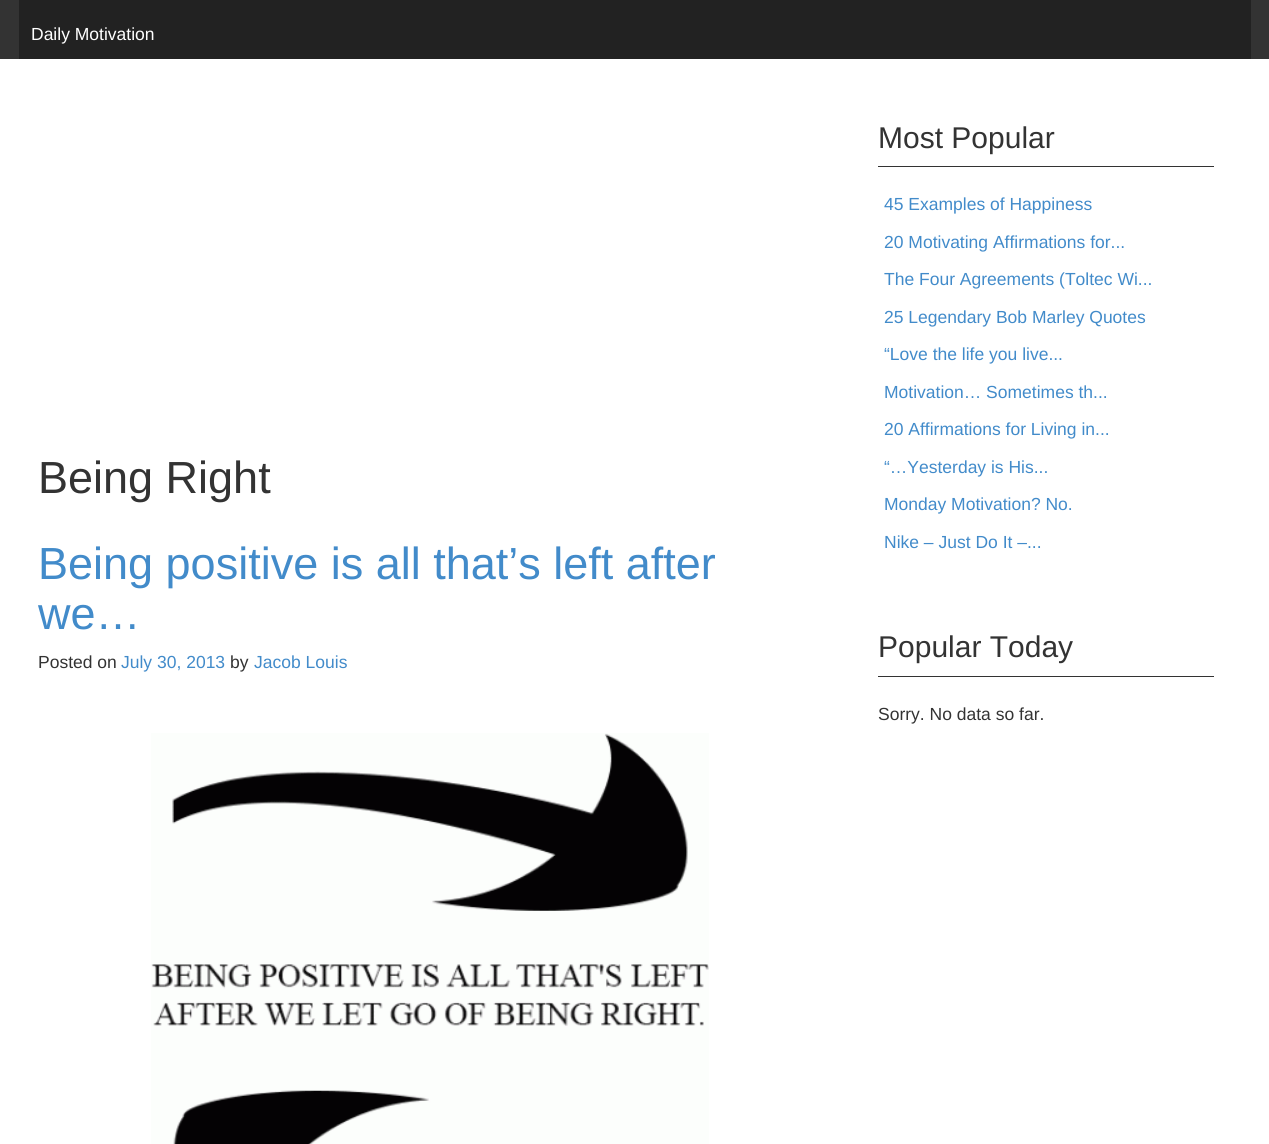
#include <cairo.h>
#include <math.h>
#include <stddef.h>

static cairo_t *c;
static void C(unsigned color){cairo_set_source_rgb(c, (color >> 16) / 255.0, (color >> 8 & 255) / 255.0, (color & 255) / 255.0);}
static void F(const char *family, double size, int italic, int bold){cairo_select_font_face(c, family, italic ? CAIRO_FONT_SLANT_ITALIC : CAIRO_FONT_SLANT_NORMAL,bold ? CAIRO_FONT_WEIGHT_BOLD : CAIRO_FONT_WEIGHT_NORMAL);cairo_set_font_size(c, size);}
static void T(double x, double y, const char *s){cairo_move_to(c, x, y);cairo_show_text(c, s);}
static void R(double x, double y, double w, double h){cairo_rectangle(c, x, y, w, h);cairo_fill(c);}
static void I(const char *path, double x, double y, double w, double h){cairo_surface_t *image = cairo_image_surface_create_from_png(path);cairo_save(c);cairo_set_source_surface(c, image, x, y);cairo_rectangle(c, x, y, w, h);cairo_fill(c);cairo_restore(c);cairo_surface_destroy(image);}
int main(void) {
cairo_surface_t *surface = cairo_image_surface_create(CAIRO_FORMAT_RGB24, 1269, 1144);
c = cairo_create(surface);
cairo_font_options_t *options = cairo_font_options_create();
cairo_font_options_set_hint_metrics(options, CAIRO_HINT_METRICS_OFF);
cairo_font_options_set_hint_style(options, CAIRO_HINT_STYLE_NONE);
cairo_set_font_options(c, options);
cairo_set_miter_limit(c, 4);
C(0xffffff);
cairo_paint(c);
C(0x333333);
R(0,0,1269,59);
C(0x222222);
R(19,0,1232,59);
F("Liberation Sans",17.5,0,0);
C(0xffffff);
T(31,40,"Daily Motivation");
F("Liberation Sans",45,0,0);
C(0x333333);
T(38,493,"Being Right");
C(0x428bca);
T(38,579,"Being positive is all that’s left after");
T(38,629,"we…");
F("Liberation Sans",17.5,0,0);
C(0x333333);
T(38,668,"Posted on");
C(0x428bca);
T(121,668,"July 30, 2013");
C(0x333333);
T(230,668,"by");
C(0x428bca);
T(254,668,"Jacob Louis");
I("1.png",151,733,558,411);
C(0x333333);
R(878,166,336,1);
F("Liberation Sans",30,0,0);
T(878,148,"Most Popular");
F("Liberation Sans",17.5,0,0);
C(0x428bca);
T(884,210,"45 Examples of Happiness");
T(884,248,"20 Motivating Affirmations for...");
T(884,285,"The Four Agreements (Toltec Wi...");
T(884,323,"25 Legendary Bob Marley Quotes");
T(884,360,"“Love the life you live...");
T(884,398,"Motivation… Sometimes th...");
T(884,435,"20 Affirmations for Living in...");
T(884,473,"“…Yesterday is His...");
T(884,510,"Monday Motivation? No.");
T(884,548,"Nike – Just Do It –...");
C(0x333333);
R(878,676,336,1);
F("Liberation Sans",30,0,0);
T(878,657,"Popular Today");
F("Liberation Sans",17.5,0,0);
T(878,720,"Sorry. No data so far.");
cairo_surface_write_to_png(surface, "o.png");
cairo_font_options_destroy(options);
cairo_destroy(c);
cairo_surface_destroy(surface);
return 0;
}
